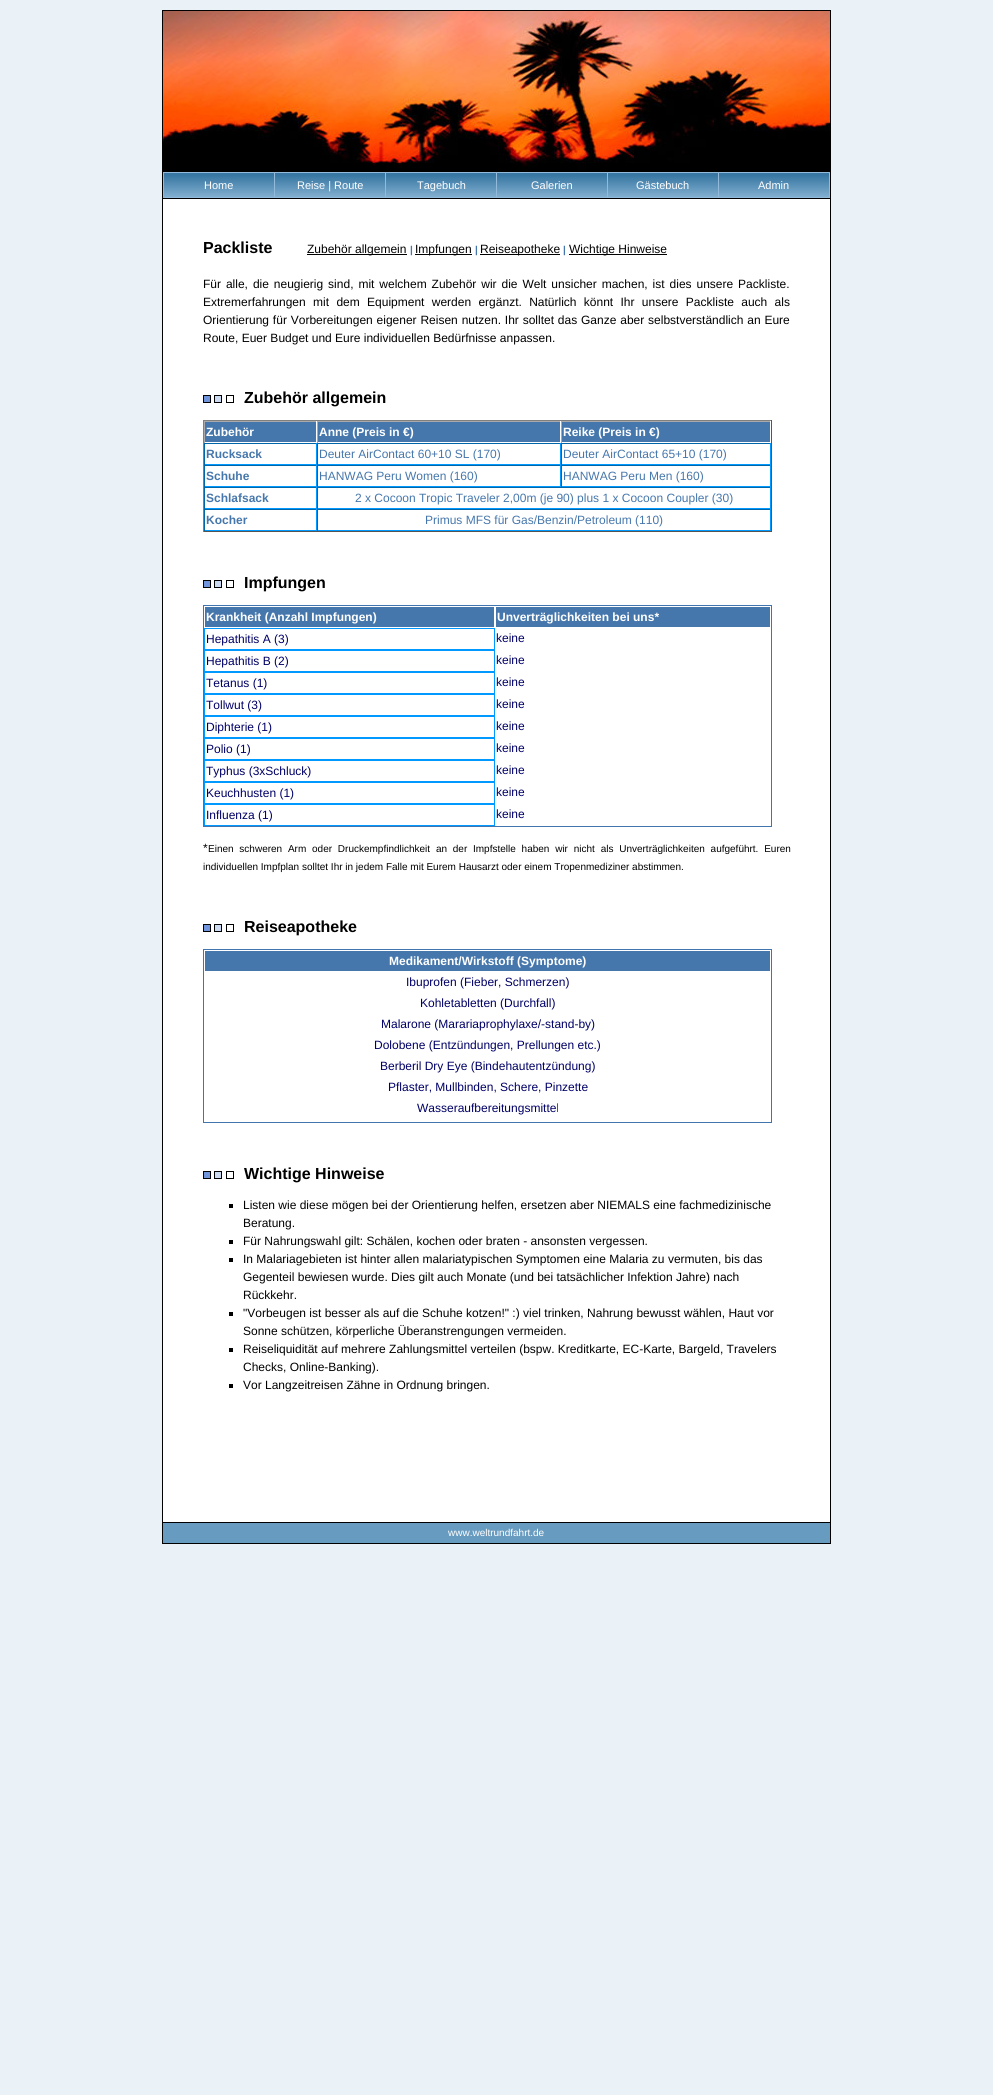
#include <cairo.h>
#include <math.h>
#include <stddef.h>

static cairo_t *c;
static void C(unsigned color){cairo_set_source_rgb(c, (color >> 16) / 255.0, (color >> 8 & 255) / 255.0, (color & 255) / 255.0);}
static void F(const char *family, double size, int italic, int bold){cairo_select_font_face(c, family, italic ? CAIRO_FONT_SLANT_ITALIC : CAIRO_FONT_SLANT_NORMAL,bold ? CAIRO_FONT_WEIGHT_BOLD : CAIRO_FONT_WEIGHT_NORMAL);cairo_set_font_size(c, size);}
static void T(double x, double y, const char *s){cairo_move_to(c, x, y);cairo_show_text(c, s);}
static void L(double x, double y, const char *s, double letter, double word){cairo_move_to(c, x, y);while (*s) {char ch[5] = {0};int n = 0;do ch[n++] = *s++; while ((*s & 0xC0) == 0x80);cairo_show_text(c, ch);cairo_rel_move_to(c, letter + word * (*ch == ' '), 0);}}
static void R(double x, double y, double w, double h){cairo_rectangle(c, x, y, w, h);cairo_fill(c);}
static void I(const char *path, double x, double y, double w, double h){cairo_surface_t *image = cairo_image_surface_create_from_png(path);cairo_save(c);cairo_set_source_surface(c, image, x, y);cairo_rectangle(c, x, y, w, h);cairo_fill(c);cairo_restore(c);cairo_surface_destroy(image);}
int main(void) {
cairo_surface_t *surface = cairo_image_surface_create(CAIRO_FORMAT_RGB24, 993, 2095);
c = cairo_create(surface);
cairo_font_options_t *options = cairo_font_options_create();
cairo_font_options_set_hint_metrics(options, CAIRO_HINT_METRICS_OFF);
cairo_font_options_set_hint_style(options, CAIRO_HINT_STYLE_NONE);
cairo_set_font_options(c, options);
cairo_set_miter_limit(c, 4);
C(0xeaf1f7);
cairo_paint(c);
C(0x000000);
R(162,10,669,1534);
I("1.png",163,11,667,160);
C(0x93b9db);
R(163,172,667,26);
I("2.png",164,173,110,24);
F("Liberation Sans",11,0,0);
C(0xffffff);
T(204,189,"Home");
I("2.png",275,173,110,24);
T(297,189,"Reise | Route");
I("2.png",386,173,110,24);
T(417,189,"Tagebuch");
I("2.png",497,173,110,24);
T(531,189,"Galerien");
I("2.png",608,173,110,24);
T(636,189,"Gästebuch");
I("2.png",719,173,110,24);
T(758,189,"Admin");
R(163,199,667,1323);
F("Liberation Sans",16,0,1);
C(0x000000);
T(203,253,"Packliste");
R(307,254,100,1);
F("Liberation Sans",12,0,0);
T(307,253,"Zubehör allgemein");
F("Liberation Sans",10,0,1);
C(0x4677ac);
T(410,253,"|");
C(0x000000);
R(415,254,57,1);
F("Liberation Sans",12,0,0);
T(415,253,"Impfungen");
F("Liberation Sans",10,0,1);
C(0x4677ac);
T(475,253,"|");
C(0x000000);
R(480,254,80,1);
F("Liberation Sans",12,0,0);
T(480,253,"Reiseapotheke");
F("Liberation Sans",10,0,1);
C(0x4677ac);
T(563,253,"|");
C(0x000000);
R(569,254,98,1);
F("Liberation Sans",12,0,0);
T(569,253,"Wichtige Hinweise");
L(203,288,"Für alle, die neugierig sind, mit welchem Zubehör wir die Welt unsicher machen, ist dies unsere Packliste.",0,1.6);
L(203,306,"Extremerfahrungen mit dem Equipment werden ergänzt. Natürlich könnt Ihr unsere Packliste auch als",0,4);
L(203,324,"Orientierung für Vorbereitungen eigener Reisen nutzen. Ihr solltet das Ganze aber selbstverständlich an Eure",0,.5);
T(203,342,"Route, Euer Budget und Eure individuellen Bedürfnisse anpassen.");
C(0x7095dc);
cairo_rectangle(c,203.5,395.5,7,7);
cairo_fill_preserve(c);
C(0x000000);
cairo_set_line_width(c,1);
cairo_stroke(c);
C(0xccdaf2);
cairo_rectangle(c,214.5,395.5,7,7);
cairo_fill_preserve(c);
C(0x000000);
cairo_stroke(c);
cairo_rectangle(c,226.5,395.5,7,7);
cairo_stroke(c);
F("Liberation Sans",16,0,1);
T(244,403,"Zubehör allgemein");
C(0x808080);
R(203,420,569,1);
C(0x555555);
R(771,420,1,112);
R(203,531,569,1);
C(0x808080);
R(203,420,1,112);
C(0x4677ac);
R(205,422,565,20);
C(0xaaaaaa);
R(204,421,567,1);
C(0xffffff);
R(316,421,1,22);
C(0xaaaaaa);
R(204,421,1,22);
F("Liberation Sans",12,0,1);
C(0xffffff);
T(206,436,"Zubehör");
R(560,421,1,22);
C(0xaaaaaa);
R(317,421,1,22);
C(0xffffff);
T(319,436,"Anne (Preis in €)");
R(770,421,1,1);
C(0xaaaaaa);
R(561,421,1,22);
C(0xffffff);
T(563,436,"Reike (Preis in €)");
C(0x0066aa);
R(204,443,567,1);
C(0x0099ff);
R(316,443,1,22);
R(204,464,113,1);
C(0x0066aa);
R(204,443,1,22);
C(0x4677ac);
T(206,458,"Rucksack");
C(0x0099ff);
R(560,443,1,22);
R(317,464,244,1);
C(0x0066aa);
R(317,443,1,22);
F("Liberation Sans",12,0,0);
C(0x4677ac);
T(319,458,"Deuter AirContact 60+10 SL (170)");
C(0x0099ff);
R(770,443,1,22);
R(561,464,210,1);
C(0x0066aa);
R(561,443,1,22);
C(0x4677ac);
T(563,458,"Deuter AirContact 65+10 (170)");
C(0x0066aa);
R(204,465,567,1);
C(0x0099ff);
R(316,465,1,22);
R(204,486,113,1);
C(0x0066aa);
R(204,465,1,22);
F("Liberation Sans",12,0,1);
C(0x4677ac);
T(206,480,"Schuhe");
C(0x0099ff);
R(560,465,1,22);
R(317,486,244,1);
C(0x0066aa);
R(317,465,1,22);
F("Liberation Sans",12,0,0);
C(0x4677ac);
T(319,480,"HANWAG Peru Women (160)");
C(0x0099ff);
R(770,465,1,22);
R(561,486,210,1);
C(0x0066aa);
R(561,465,1,22);
C(0x4677ac);
T(563,480,"HANWAG Peru Men (160)");
C(0x0066aa);
R(204,487,567,1);
C(0x0099ff);
R(316,487,1,22);
R(204,508,113,1);
C(0x0066aa);
R(204,487,1,22);
F("Liberation Sans",12,0,1);
C(0x4677ac);
T(206,502,"Schlafsack");
C(0x0099ff);
R(770,487,1,22);
R(317,508,454,1);
C(0x0066aa);
R(317,487,1,22);
F("Liberation Sans",12,0,0);
C(0x4677ac);
T(355,502,"2 x Cocoon Tropic Traveler 2,00m (je 90) plus 1 x Cocoon Coupler (30)");
C(0x0066aa);
R(204,509,567,1);
C(0x0099ff);
R(316,509,1,22);
R(204,530,113,1);
C(0x0066aa);
R(204,509,1,22);
F("Liberation Sans",12,0,1);
C(0x4677ac);
T(206,524,"Kocher");
C(0x0099ff);
R(770,509,1,22);
R(317,530,454,1);
C(0x0066aa);
R(317,509,1,22);
F("Liberation Sans",12,0,0);
C(0x4677ac);
T(425,524,"Primus MFS für Gas/Benzin/Petroleum (110)");
C(0x7095dc);
cairo_rectangle(c,203.5,580.5,7,7);
cairo_fill_preserve(c);
C(0x000000);
cairo_stroke(c);
C(0xccdaf2);
cairo_rectangle(c,214.5,580.5,7,7);
cairo_fill_preserve(c);
C(0x000000);
cairo_stroke(c);
cairo_rectangle(c,226.5,580.5,7,7);
cairo_stroke(c);
F("Liberation Sans",16,0,1);
T(244,588,"Impfungen");
cairo_rectangle(c,203.5,605.5,568,221);
C(0x4275ad);
cairo_stroke(c);
C(0x4677ac);
R(205,607,565,20);
cairo_rectangle(c,204.5,606.5,290,21);
C(0xffffff);
cairo_stroke(c);
F("Liberation Sans",12,0,1);
T(206,621,"Krankheit (Anzahl Impfungen)");
cairo_rectangle(c,495.5,606.5,275,21);
cairo_stroke(c);
T(497,621,"Unverträglichkeiten bei uns*");
cairo_rectangle(c,204.5,628.5,290,21);
C(0x0099ff);
cairo_stroke(c);
F("Liberation Sans",12,0,0);
C(0x000066);
T(206,643,"Hepathitis A (3)");
T(496,642,"keine");
cairo_rectangle(c,204.5,650.5,290,21);
C(0x0099ff);
cairo_stroke(c);
C(0x000066);
T(206,665,"Hepathitis B (2)");
T(496,664,"keine");
cairo_rectangle(c,204.5,672.5,290,21);
C(0x0099ff);
cairo_stroke(c);
C(0x000066);
T(206,687,"Tetanus (1)");
T(496,686,"keine");
cairo_rectangle(c,204.5,694.5,290,21);
C(0x0099ff);
cairo_stroke(c);
C(0x000066);
T(206,709,"Tollwut (3)");
T(496,708,"keine");
cairo_rectangle(c,204.5,716.5,290,21);
C(0x0099ff);
cairo_stroke(c);
C(0x000066);
T(206,731,"Diphterie (1)");
T(496,730,"keine");
cairo_rectangle(c,204.5,738.5,290,21);
C(0x0099ff);
cairo_stroke(c);
C(0x000066);
T(206,753,"Polio (1)");
T(496,752,"keine");
cairo_rectangle(c,204.5,760.5,290,21);
C(0x0099ff);
cairo_stroke(c);
C(0x000066);
T(206,775,"Typhus (3xSchluck)");
T(496,774,"keine");
cairo_rectangle(c,204.5,782.5,290,21);
C(0x0099ff);
cairo_stroke(c);
C(0x000066);
T(206,797,"Keuchhusten (1)");
T(496,796,"keine");
cairo_rectangle(c,204.5,804.5,290,21);
C(0x0099ff);
cairo_stroke(c);
C(0x000066);
T(206,819,"Influenza (1)");
T(496,818,"keine");
C(0x000000);
T(203,852,"*");
F("Liberation Sans",10,0,0);
L(208,852,"Einen schweren Arm oder Druckempfindlichkeit an der Impfstelle haben wir nicht als Unverträglichkeiten aufgeführt. Euren",0,3);
T(203,870,"individuellen Impfplan solltet Ihr in jedem Falle mit Eurem Hausarzt oder einem Tropenmediziner abstimmen.");
C(0x7095dc);
cairo_rectangle(c,203.5,924.5,7,7);
cairo_fill_preserve(c);
C(0x000000);
cairo_stroke(c);
C(0xccdaf2);
cairo_rectangle(c,214.5,924.5,7,7);
cairo_fill_preserve(c);
C(0x000000);
cairo_stroke(c);
cairo_rectangle(c,226.5,924.5,7,7);
cairo_stroke(c);
F("Liberation Sans",16,0,1);
T(244,932,"Reiseapotheke");
cairo_rectangle(c,203.5,949.5,568,173);
C(0x4275ad);
cairo_stroke(c);
C(0x4677ac);
R(205,951,565,20);
F("Liberation Sans",12,0,1);
C(0xffffff);
T(389,965,"Medikament/Wirkstoff (Symptome)");
F("Liberation Sans",12,0,0);
C(0x000066);
T(406,986,"Ibuprofen (Fieber, Schmerzen)");
T(420,1007,"Kohletabletten (Durchfall)");
T(381,1028,"Malarone (Marariaprophylaxe/-stand-by)");
T(374,1049,"Dolobene (Entzündungen, Prellungen etc.)");
T(380,1070,"Berberil Dry Eye (Bindehautentzündung)");
T(388,1091,"Pflaster, Mullbinden, Schere, Pinzette");
T(417,1112,"Wasseraufbereitungsmittel");
C(0x7095dc);
cairo_rectangle(c,203.5,1171.5,7,7);
cairo_fill_preserve(c);
C(0x000000);
cairo_stroke(c);
C(0xccdaf2);
cairo_rectangle(c,214.5,1171.5,7,7);
cairo_fill_preserve(c);
C(0x000000);
cairo_stroke(c);
cairo_rectangle(c,226.5,1171.5,7,7);
cairo_stroke(c);
F("Liberation Sans",16,0,1);
T(244,1179,"Wichtige Hinweise");
R(229,1204,4,4);
F("Liberation Sans",12,0,0);
T(243,1209,"Listen wie diese mögen bei der Orientierung helfen, ersetzen aber NIEMALS eine fachmedizinische");
T(243,1227,"Beratung.");
R(229,1240,4,4);
T(243,1245,"Für Nahrungswahl gilt: Schälen, kochen oder braten - ansonsten vergessen.");
R(229,1258,4,4);
T(243,1263,"In Malariagebieten ist hinter allen malariatypischen Symptomen eine Malaria zu vermuten, bis das");
T(243,1281,"Gegenteil bewiesen wurde. Dies gilt auch Monate (und bei tatsächlicher Infektion Jahre) nach");
T(243,1299,"Rückkehr.");
R(229,1312,4,4);
T(243,1317,"\"Vorbeugen ist besser als auf die Schuhe kotzen!\" :) viel trinken, Nahrung bewusst wählen, Haut vor");
T(243,1335,"Sonne schützen, körperliche Überanstrengungen vermeiden.");
R(229,1348,4,4);
T(243,1353,"Reiseliquidität auf mehrere Zahlungsmittel verteilen (bspw. Kreditkarte, EC-Karte, Bargeld, Travelers");
T(243,1371,"Checks, Online-Banking).");
R(229,1384,4,4);
T(243,1389,"Vor Langzeitreisen Zähne in Ordnung bringen.");
C(0x689bc0);
R(163,1523,667,20);
F("Liberation Sans",10,0,0);
C(0xffffff);
T(448,1536,"www.weltrundfahrt.de");
cairo_surface_write_to_png(surface, "o.png");
cairo_font_options_destroy(options);
cairo_destroy(c);
cairo_surface_destroy(surface);
return 0;
}
